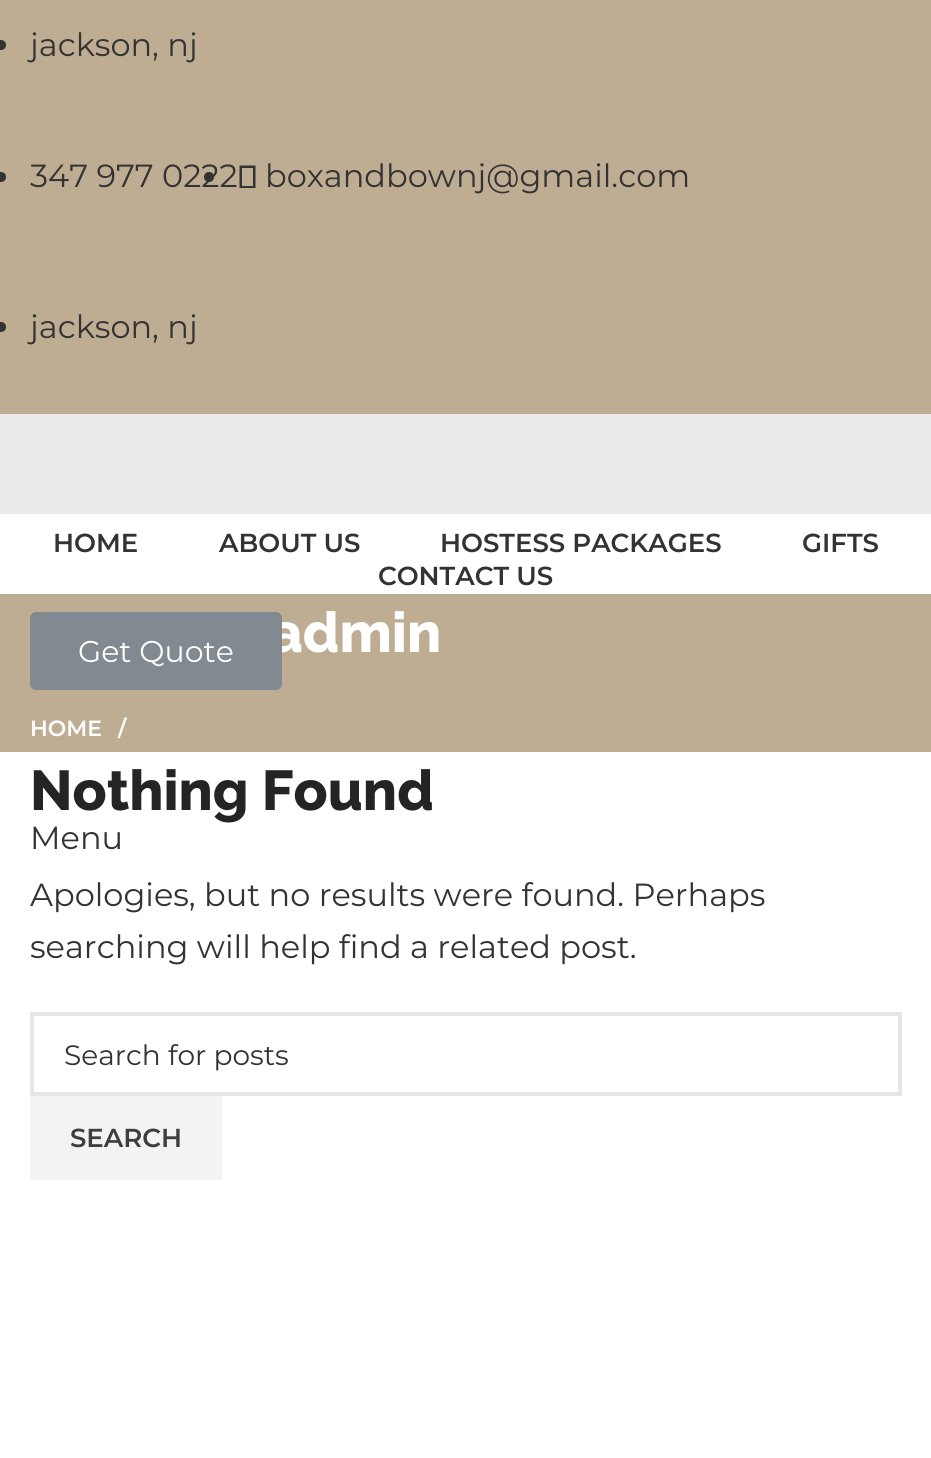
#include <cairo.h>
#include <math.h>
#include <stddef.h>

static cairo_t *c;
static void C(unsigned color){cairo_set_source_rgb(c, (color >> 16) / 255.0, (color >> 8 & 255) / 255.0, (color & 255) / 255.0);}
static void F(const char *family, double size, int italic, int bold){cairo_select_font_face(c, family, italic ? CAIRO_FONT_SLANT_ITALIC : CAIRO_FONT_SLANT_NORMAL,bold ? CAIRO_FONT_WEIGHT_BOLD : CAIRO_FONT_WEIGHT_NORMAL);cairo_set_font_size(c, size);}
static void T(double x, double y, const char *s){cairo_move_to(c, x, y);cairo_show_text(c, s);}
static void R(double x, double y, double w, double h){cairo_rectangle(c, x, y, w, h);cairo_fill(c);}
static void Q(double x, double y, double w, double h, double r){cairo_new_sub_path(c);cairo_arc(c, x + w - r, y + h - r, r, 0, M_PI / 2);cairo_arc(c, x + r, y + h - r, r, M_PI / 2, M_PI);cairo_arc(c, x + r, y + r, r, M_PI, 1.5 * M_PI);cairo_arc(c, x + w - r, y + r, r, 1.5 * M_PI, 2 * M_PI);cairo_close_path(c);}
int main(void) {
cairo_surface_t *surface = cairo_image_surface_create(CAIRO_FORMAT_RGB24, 931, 1458);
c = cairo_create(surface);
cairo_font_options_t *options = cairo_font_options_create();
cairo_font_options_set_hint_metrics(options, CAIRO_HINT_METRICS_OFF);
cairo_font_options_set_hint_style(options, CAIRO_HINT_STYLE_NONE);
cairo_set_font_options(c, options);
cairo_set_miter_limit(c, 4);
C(0xffffff);
cairo_paint(c);
C(0xbfad93);
R(0,0,931,414);
C(0x333333);
cairo_arc(c,1,45,5,0,2 * M_PI);
cairo_fill(c);
F("Montserrat",32,0,0);
T(30,56,"jackson, nj");
cairo_new_path(c);
cairo_arc(c,1,177,5,0,2 * M_PI);
cairo_fill(c);
T(30,187,"347 977 0222");
cairo_new_path(c);
cairo_arc(c,209,177,5,0,2 * M_PI);
cairo_fill(c);
cairo_new_path(c);
cairo_move_to(c,239.5,188);
cairo_line_to(c,239.5,165.5);
cairo_line_to(c,255.5,165.5);
cairo_line_to(c,255.5,188);
cairo_close_path(c);
cairo_move_to(c,242,186);
cairo_line_to(c,253,186);
cairo_line_to(c,253,168);
cairo_line_to(c,242,168);
cairo_close_path(c);
cairo_fill(c);
T(265,187,"boxandbownj@gmail.com");
cairo_new_path(c);
cairo_arc(c,1,327,5,0,2 * M_PI);
cairo_fill(c);
T(30,338,"jackson, nj");
C(0xebebeb);
R(0,414,931,100);
F("Montserrat SemiBold",26,0,0);
C(0x333333);
T(53,552,"HOME");
T(219,552,"ABOUT US");
T(440,552,"HOSTESS PACKAGES");
T(802,552,"GIFTS");
T(378,585,"CONTACT US");
C(0xbfad93);
R(0,594,931,158);
F("Raleway ExtraBold",56,0,0);
C(0xffffff);
T(270,652,"admin");
C(0x818a91);
Q(30,612,252,78,6);
cairo_fill(c);
F("Montserrat",30,0,0);
C(0xffffff);
T(78,662,"Get Quote");
F("Montserrat",32,0,0);
C(0x333333);
T(30,849,"Menu");
F("Montserrat SemiBold",22,0,0);
C(0xffffff);
T(30,736,"HOME");
T(118,736,"/");
F("Raleway ExtraBold",56,0,0);
C(0x242424);
T(30,810,"Nothing Found");
F("Montserrat",32,0,0);
C(0x333333);
T(30,906,"Apologies, but no results were found. Perhaps");
T(30,958,"searching will help find a related post.");
cairo_rectangle(c,32,1014,868,80);
C(0xe6e6e6);
cairo_set_line_width(c,4);
cairo_stroke(c);
F("Montserrat",28,0,0);
C(0x333333);
T(64,1065,"Search for posts");
C(0xf3f3f3);
R(30,1096,192,84);
F("Montserrat SemiBold",26,0,0);
C(0x3e3e3e);
T(70,1147,"SEARCH");
cairo_surface_write_to_png(surface, "o.png");
cairo_font_options_destroy(options);
cairo_destroy(c);
cairo_surface_destroy(surface);
return 0;
}
